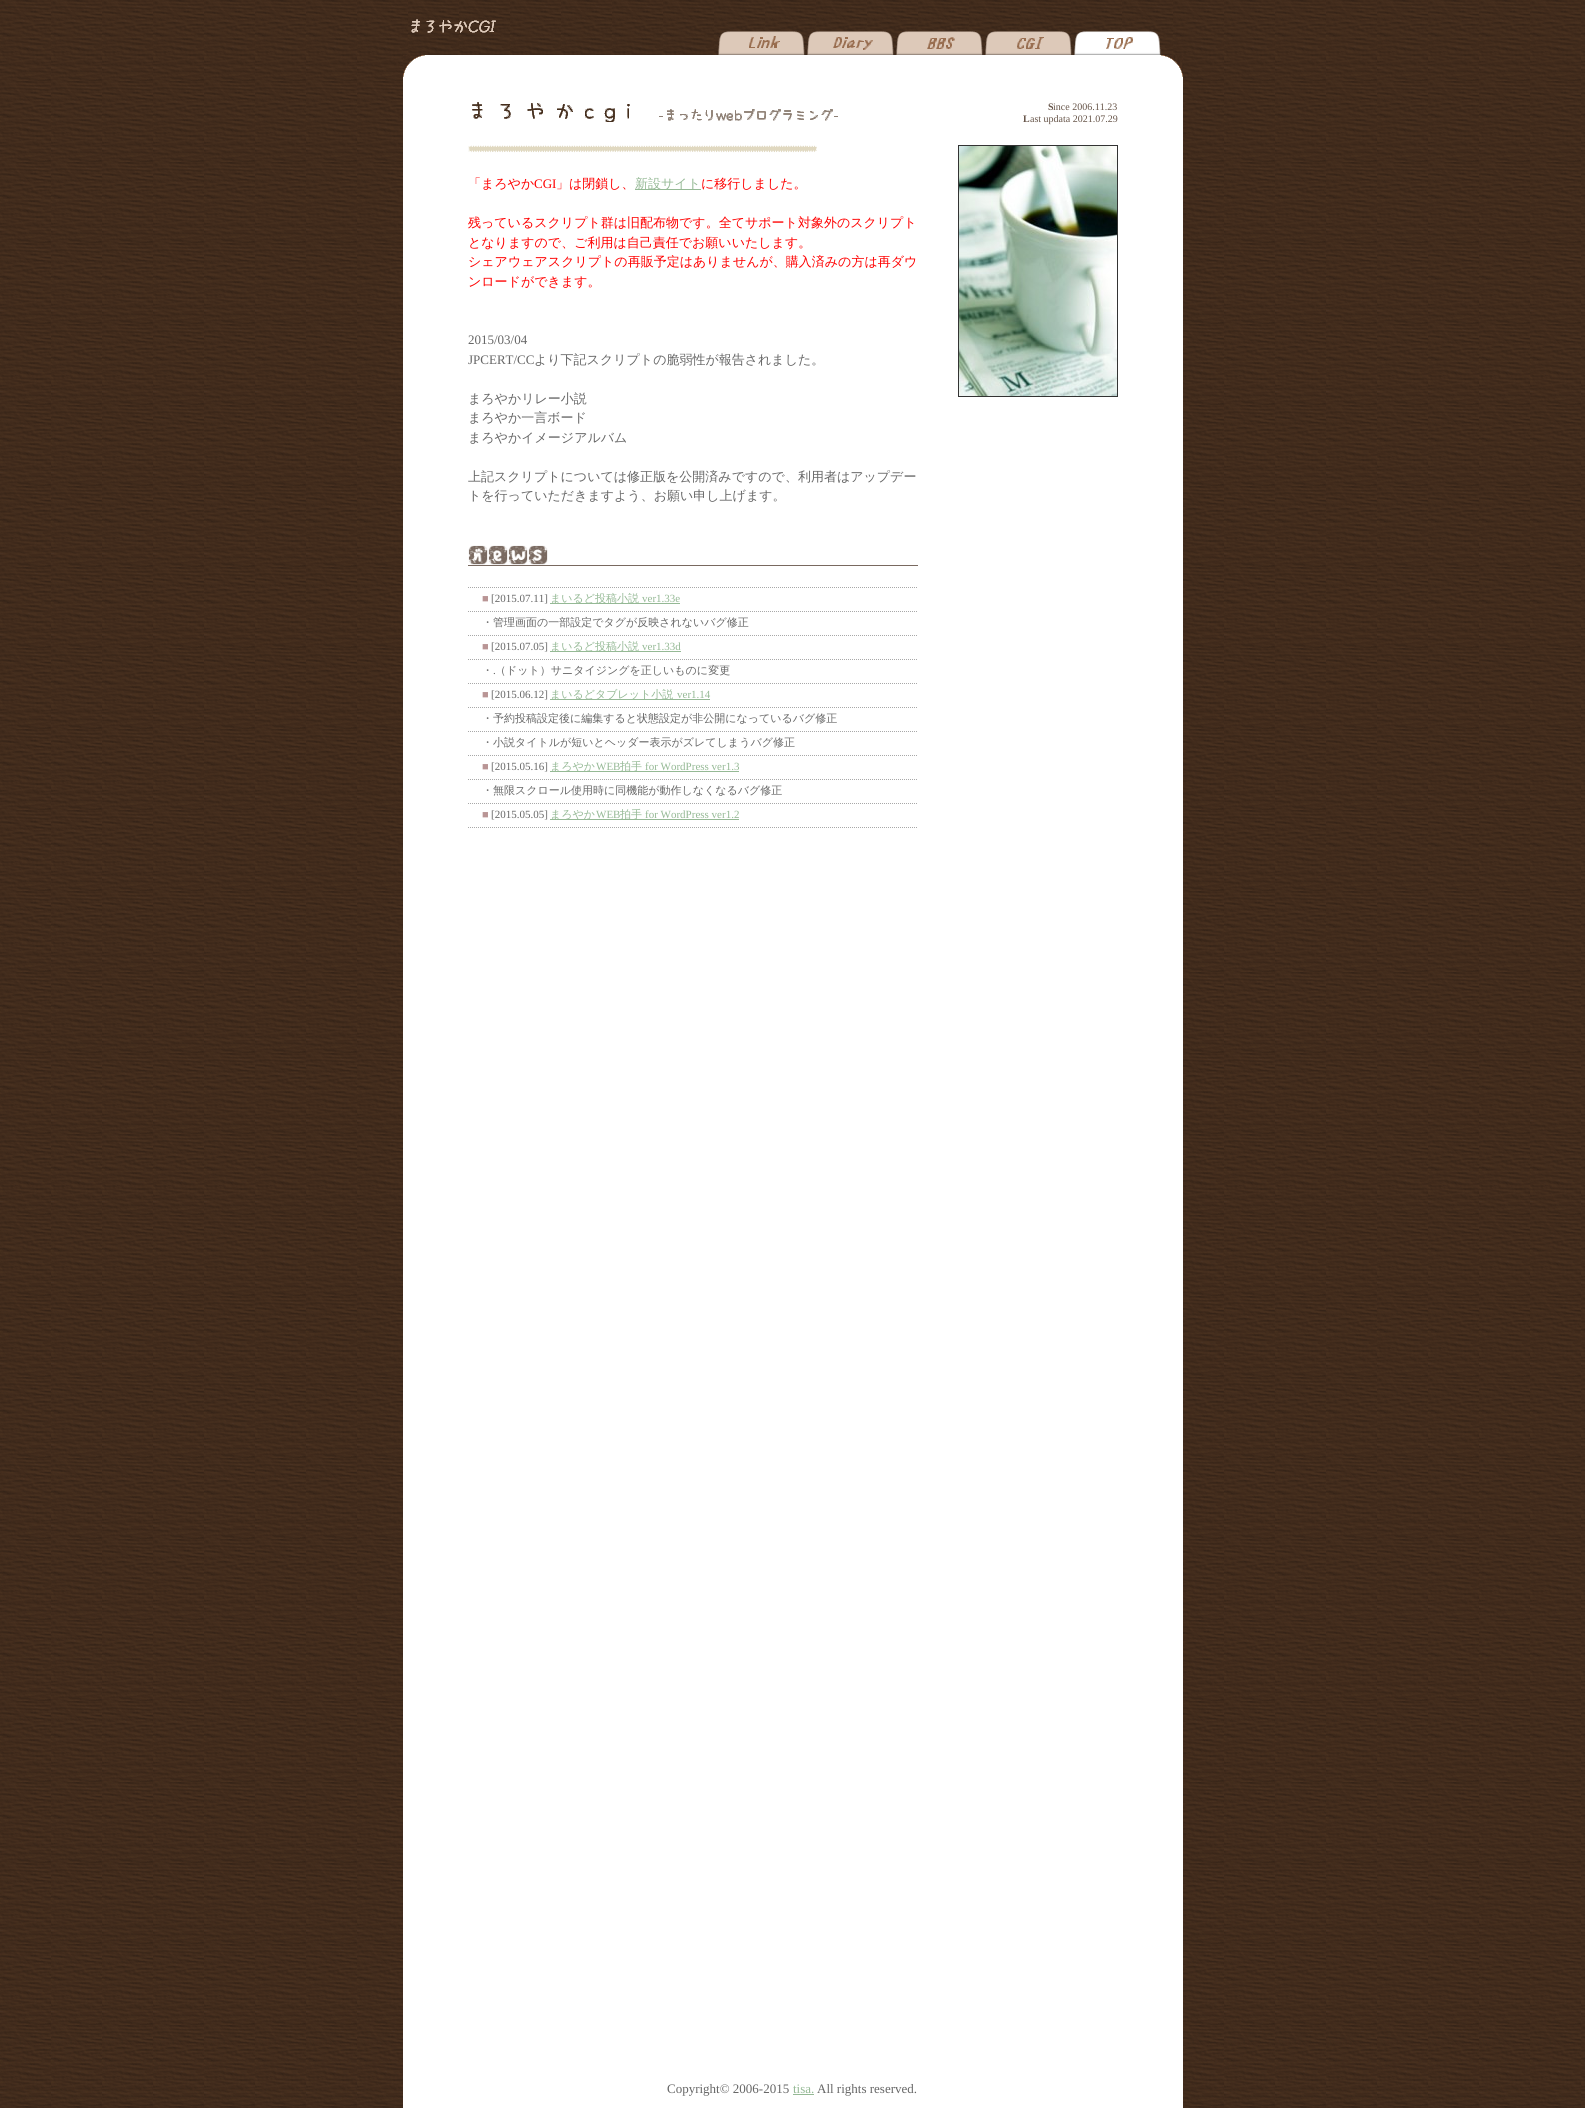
#include <cairo.h>
#include <math.h>
#include <stddef.h>

static cairo_t *c;
static void C(unsigned color){cairo_set_source_rgb(c, (color >> 16) / 255.0, (color >> 8 & 255) / 255.0, (color & 255) / 255.0);}
static void F(const char *family, double size, int italic, int bold){cairo_select_font_face(c, family, italic ? CAIRO_FONT_SLANT_ITALIC : CAIRO_FONT_SLANT_NORMAL,bold ? CAIRO_FONT_WEIGHT_BOLD : CAIRO_FONT_WEIGHT_NORMAL);cairo_set_font_size(c, size);}
static void T(double x, double y, const char *s){cairo_move_to(c, x, y);cairo_show_text(c, s);}
static void R(double x, double y, double w, double h){cairo_rectangle(c, x, y, w, h);cairo_fill(c);}
static void I(const char *path, double x, double y, double w, double h){cairo_surface_t *image = cairo_image_surface_create_from_png(path);cairo_save(c);cairo_set_source_surface(c, image, x, y);cairo_rectangle(c, x, y, w, h);cairo_fill(c);cairo_restore(c);cairo_surface_destroy(image);}
int main(void) {
cairo_surface_t *surface = cairo_image_surface_create(CAIRO_FORMAT_RGB24, 1585, 2108);
c = cairo_create(surface);
cairo_font_options_t *options = cairo_font_options_create();
cairo_font_options_set_hint_metrics(options, CAIRO_HINT_METRICS_OFF);
cairo_font_options_set_hint_style(options, CAIRO_HINT_STYLE_NONE);
cairo_set_font_options(c, options);
cairo_set_miter_limit(c, 4);
C(0xffffff);
cairo_paint(c);
I("1.png",0,0,1585,2108);
I("2.png",411,19,85,14);
I("3.png",718,31,87,24);
I("4.png",807,31,87,24);
I("5.png",896,31,87,24);
I("6.png",985,31,87,24);
I("7.png",1074,31,87,24);
C(0xffffff);
R(425,55,736,22);
I("8.png",403,55,22,22);
I("9.png",1161,55,22,22);
R(403,77,780,2031);
I("10.png",472,102,366,20);
F("Liberation Serif",10,0,1);
C(0x665448);
T(1048,110,"S");
F("Liberation Serif",10,0,0);
T(1053,110,"ince 2006.11.23");
F("Liberation Serif",10,0,1);
T(1023,122,"L");
F("Liberation Serif",10,0,0);
T(1030,122,"ast updata 2021.07.29");
I("11.png",468,145,349,8);
cairo_rectangle(c,958.5,145.5,159,251);
C(0x333333);
cairo_set_line_width(c,1);
cairo_stroke(c);
I("12.png",959,146,158,250);
F("WenQuanYi Zen Hei Medium",13,0,0);
C(0xff0000);
T(468,188,"「まろやか");
F("Liberation Serif",13,0,0);
T(534,188,"CGI");
F("WenQuanYi Zen Hei Medium",13,0,0);
T(556,188,"」は閉鎖し、");
C(0x95b995);
R(635,189,66,1);
T(635,188,"新設サイト");
C(0xff0000);
T(701,188,"に移行しました。");
T(468,227,"残っているスクリプト群は旧配布物です。全てサポート対象外のスクリプト");
T(468,247,"となりますので、ご利用は自己責任でお願いいたします。");
T(468,266,"シェアウェアスクリプトの再販予定はありませんが、購入済みの方は再ダウ");
T(468,286,"ンロードができます。");
F("Liberation Serif",13,0,0);
C(0x666666);
T(468,344,"2015/03/04");
T(468,364,"JPCERT/CC");
F("WenQuanYi Zen Hei Medium",13,0,0);
T(534,364,"より下記スクリプトの脆弱性が報告されました。");
T(468,403,"まろやかリレー小説");
T(468,422,"まろやか一言ボード");
T(468,442,"まろやかイメージアルバム");
T(468,481,"上記スクリプトについては修正版を公開済みですので、利用者はアップデー");
T(468,500,"トを行っていただきますよう、お願い申し上げます。");
C(0x796960);
R(468,565,450,1);
I("13.png",468,545,20,20);
I("14.png",488,545,20,20);
I("15.png",508,545,20,20);
I("16.png",528,545,20,20);
I("17.png",468,587,449,241);
F("Liberation Serif",11,0,0);
C(0xb99595);
T(482,602,"■");
C(0x666666);
T(491,602,"[2015.07.11]");
C(0x95b995);
R(550,603,130,1);
F("WenQuanYi Zen Hei Medium",11,0,0);
T(550,602,"まいるど投稿小説");
F("Liberation Serif",11,0,0);
T(642,602,"ver1.33e");
F("WenQuanYi Zen Hei Medium",11,0,0);
C(0x666666);
T(482,626,"・管理画面の一部設定でタグが反映されないバグ修正");
F("Liberation Serif",11,0,0);
C(0xb99595);
T(482,650,"■");
C(0x666666);
T(491,650,"[2015.07.05]");
C(0x95b995);
R(550,651,131,1);
F("WenQuanYi Zen Hei Medium",11,0,0);
T(550,650,"まいるど投稿小説");
F("Liberation Serif",11,0,0);
T(642,650,"ver1.33d");
F("WenQuanYi Zen Hei Medium",11,0,0);
C(0x666666);
T(482,674,"・");
T(495,674,"（ドット）サニタイジングを正しいものに変更");
F("Liberation Serif",11,0,0);
T(493,674,".");
C(0xb99595);
T(482,698,"■");
C(0x666666);
T(491,698,"[2015.06.12]");
C(0x95b995);
R(550,699,160,1);
F("WenQuanYi Zen Hei Medium",11,0,0);
T(550,698,"まいるどタブレット小説");
F("Liberation Serif",11,0,0);
T(677,698,"ver1.14");
F("WenQuanYi Zen Hei Medium",11,0,0);
C(0x666666);
T(482,722,"・予約投稿設定後に編集すると状態設定が非公開になっているバグ修正");
T(482,746,"・小説タイトルが短いとヘッダー表示がズレてしまうバグ修正");
F("Liberation Serif",11,0,0);
C(0xb99595);
T(482,770,"■");
C(0x666666);
T(491,770,"[2015.05.16]");
C(0x95b995);
R(550,771,189,1);
F("WenQuanYi Zen Hei Medium",11,0,0);
T(550,770,"まろやか");
F("Liberation Serif",11,0,0);
T(596,770,"WEB");
F("WenQuanYi Zen Hei Medium",11,0,0);
T(620,770,"拍手");
F("Liberation Serif",11,0,0);
T(645,770,"for WordPress ver1.3");
F("WenQuanYi Zen Hei Medium",11,0,0);
C(0x666666);
T(482,794,"・無限スクロール使用時に同機能が動作しなくなるバグ修正");
F("Liberation Serif",11,0,0);
C(0xb99595);
T(482,818,"■");
C(0x666666);
T(491,818,"[2015.05.05]");
C(0x95b995);
R(550,819,189,1);
F("WenQuanYi Zen Hei Medium",11,0,0);
T(550,818,"まろやか");
F("Liberation Serif",11,0,0);
T(596,818,"WEB");
F("WenQuanYi Zen Hei Medium",11,0,0);
T(620,818,"拍手");
F("Liberation Serif",11,0,0);
T(645,818,"for WordPress ver1.2");
F("Liberation Serif",13,0,0);
C(0x666666);
T(667,2093,"Copyright© 2006-2015");
C(0x95b995);
T(793,2093,"tisa.");
R(793,2094,21,1);
C(0x666666);
T(817,2093,"All rights reserved.");
cairo_surface_write_to_png(surface, "o.png");
cairo_font_options_destroy(options);
cairo_destroy(c);
cairo_surface_destroy(surface);
return 0;
}
